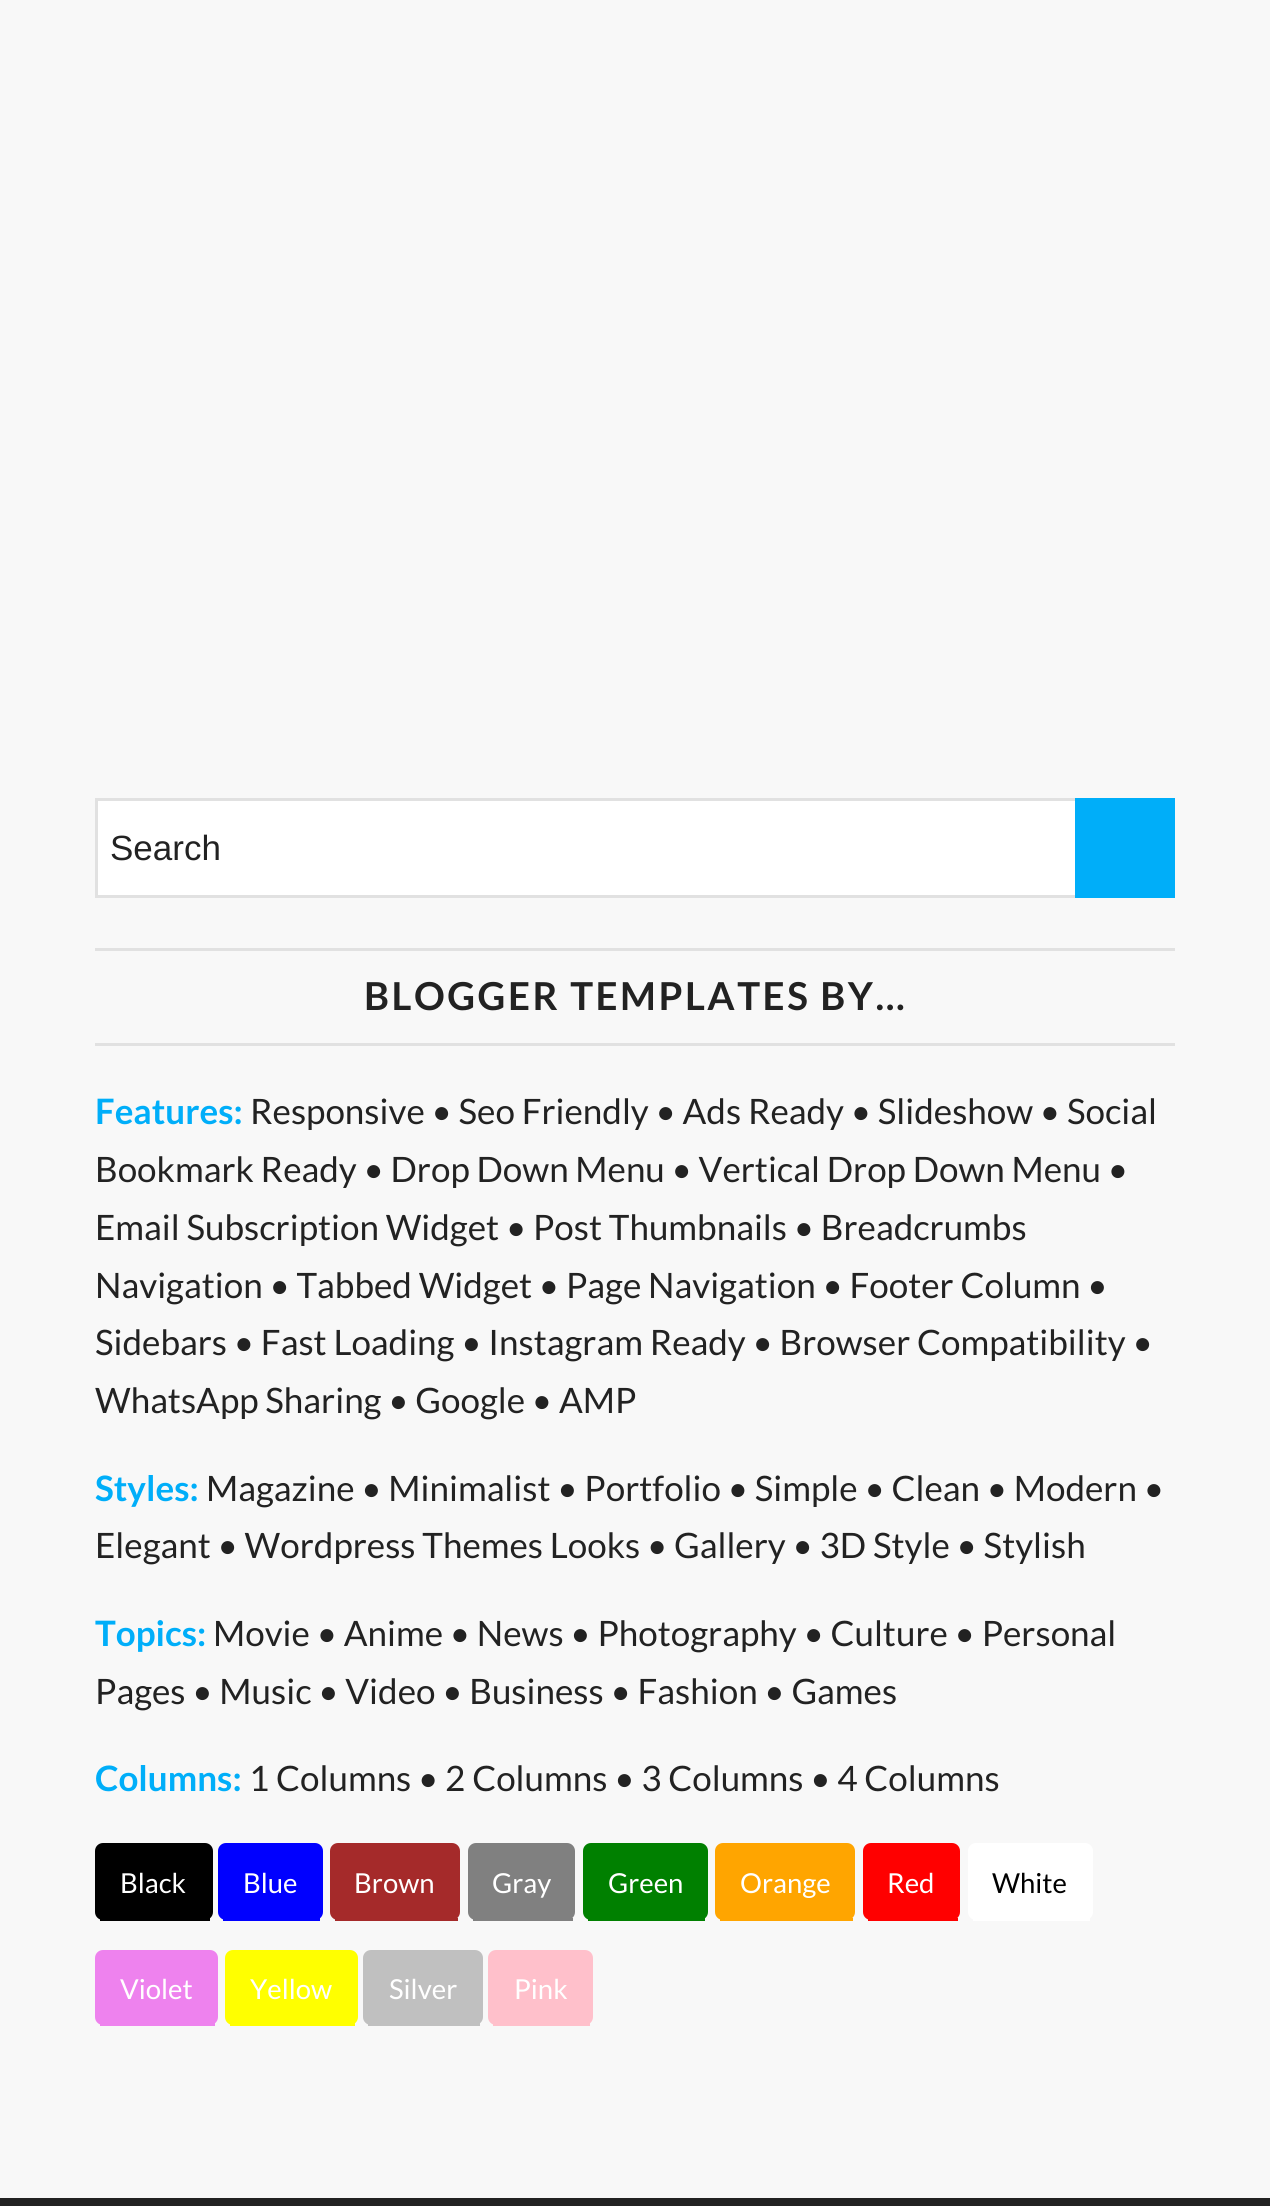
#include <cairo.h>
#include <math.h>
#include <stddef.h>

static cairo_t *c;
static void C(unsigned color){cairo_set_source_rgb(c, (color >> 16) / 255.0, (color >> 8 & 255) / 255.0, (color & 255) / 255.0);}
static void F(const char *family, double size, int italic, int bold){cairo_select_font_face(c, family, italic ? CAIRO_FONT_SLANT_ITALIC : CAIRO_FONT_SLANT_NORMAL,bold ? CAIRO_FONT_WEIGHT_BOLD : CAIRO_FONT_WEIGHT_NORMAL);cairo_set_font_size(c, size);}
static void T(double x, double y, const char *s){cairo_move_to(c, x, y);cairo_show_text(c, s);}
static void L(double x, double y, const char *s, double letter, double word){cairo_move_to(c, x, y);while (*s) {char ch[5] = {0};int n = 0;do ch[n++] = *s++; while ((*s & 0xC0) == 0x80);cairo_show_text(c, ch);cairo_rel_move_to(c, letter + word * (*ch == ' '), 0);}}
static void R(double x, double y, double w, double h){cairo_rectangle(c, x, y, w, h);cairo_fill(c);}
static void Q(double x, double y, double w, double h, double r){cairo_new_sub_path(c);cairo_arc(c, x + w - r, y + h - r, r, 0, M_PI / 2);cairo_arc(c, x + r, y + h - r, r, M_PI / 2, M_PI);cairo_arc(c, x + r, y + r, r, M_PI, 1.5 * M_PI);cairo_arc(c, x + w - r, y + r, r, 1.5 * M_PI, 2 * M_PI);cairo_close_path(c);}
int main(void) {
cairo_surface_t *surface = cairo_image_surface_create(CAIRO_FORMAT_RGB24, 1270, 2206);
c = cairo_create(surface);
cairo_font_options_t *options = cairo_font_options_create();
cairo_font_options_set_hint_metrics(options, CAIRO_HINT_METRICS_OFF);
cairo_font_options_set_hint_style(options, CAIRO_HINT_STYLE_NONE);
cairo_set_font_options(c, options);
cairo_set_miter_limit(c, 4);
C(0xf8f8f8);
cairo_paint(c);
C(0xffffff);
R(98,801,977,94);
cairo_rectangle(c,96.5,799.5,1077,97);
C(0xe1e1e1);
cairo_set_line_width(c,3);
cairo_stroke(c);
F("Liberation Sans",35,0,0);
C(0x222222);
T(110,860,"Search");
C(0x00aef9);
R(1075,798,100,100);
C(0xe1e1e1);
R(95,948,1080,3);
R(95,1043,1080,3);
F("Lato",38.5,0,1);
C(0x222222);
L(364,1010,"BLOGGER TEMPLATES BY…",2.5,0);
F("Lato",35,0,1);
C(0x00aef9);
T(95,1124,"Features:");
F("Lato",35,0,0);
C(0x222222);
T(250,1124,"Responsive • Seo Friendly • Ads Ready • Slideshow • Social");
T(95,1182,"Bookmark Ready • Drop Down Menu • Vertical Drop Down Menu •");
T(95,1240,"Email Subscription Widget • Post Thumbnails • Breadcrumbs");
T(95,1298,"Navigation • Tabbed Widget • Page Navigation • Footer Column •");
T(95,1355,"Sidebars • Fast Loading • Instagram Ready • Browser Compatibility •");
T(95,1413,"WhatsApp Sharing • Google • AMP");
F("Lato",35,0,1);
C(0x00aef9);
T(95,1501,"Styles:");
F("Lato",35,0,0);
C(0x222222);
T(206,1501,"Magazine • Minimalist • Portfolio • Simple • Clean • Modern •");
T(95,1558,"Elegant • Wordpress Themes Looks • Gallery • 3D Style • Stylish");
F("Lato",35,0,1);
C(0x00aef9);
T(95,1646,"Topics:");
F("Lato",35,0,0);
C(0x222222);
T(213,1646,"Movie • Anime • News • Photography • Culture • Personal");
T(95,1704,"Pages • Music • Video • Business • Fashion • Games");
F("Lato",35,0,1);
C(0x00aef9);
T(95,1791,"Columns:");
F("Lato",35,0,0);
C(0x222222);
T(249,1791,"1 Columns • 2 Columns • 3 Columns • 4 Columns");
C(0x000000);
Q(95,1843,118,77,8);
cairo_fill(c);
R(100,1918,110,3);
F("Lato",27.5,0,0);
C(0xffffff);
T(120,1893,"Black");
C(0x0000ff);
Q(218,1843,105,77,8);
cairo_fill(c);
R(223,1918,97,3);
C(0xffffff);
T(243,1893,"Blue");
C(0xa52a2a);
Q(330,1843,130,77,8);
cairo_fill(c);
R(335,1918,123,3);
C(0xffffff);
T(354,1893,"Brown");
C(0x808080);
Q(468,1843,107,77,8);
cairo_fill(c);
R(473,1918,100,3);
C(0xffffff);
T(492,1893,"Gray");
C(0x008000);
Q(583,1843,125,77,8);
cairo_fill(c);
R(588,1918,117,3);
C(0xffffff);
T(608,1893,"Green");
C(0xffa500);
Q(715,1843,140,77,8);
cairo_fill(c);
R(720,1918,133,3);
C(0xffffff);
T(740,1893,"Orange");
C(0xff0000);
Q(863,1843,97,77,8);
cairo_fill(c);
R(868,1918,90,3);
C(0xffffff);
T(887,1893,"Red");
Q(968,1843,125,77,8);
cairo_fill(c);
R(973,1918,117,3);
C(0x000000);
T(992,1893,"White");
C(0xee82ee);
Q(95,1950,123,75,8);
cairo_fill(c);
R(100,2023,115,3);
C(0xffffff);
T(120,1999,"Violet");
C(0xffff00);
Q(225,1950,133,75,8);
cairo_fill(c);
R(230,2023,125,3);
C(0xffffff);
T(250,1999,"Yellow");
C(0xc0c0c0);
Q(363,1950,120,75,8);
cairo_fill(c);
R(368,2023,112,3);
C(0xffffff);
T(389,1999,"Silver");
C(0xffc0cb);
Q(488,1950,105,75,8);
cairo_fill(c);
R(493,2023,97,3);
C(0xffffff);
T(514,1999,"Pink");
C(0x222222);
R(0,2198,1270,8);
cairo_surface_write_to_png(surface, "o.png");
cairo_font_options_destroy(options);
cairo_destroy(c);
cairo_surface_destroy(surface);
return 0;
}
